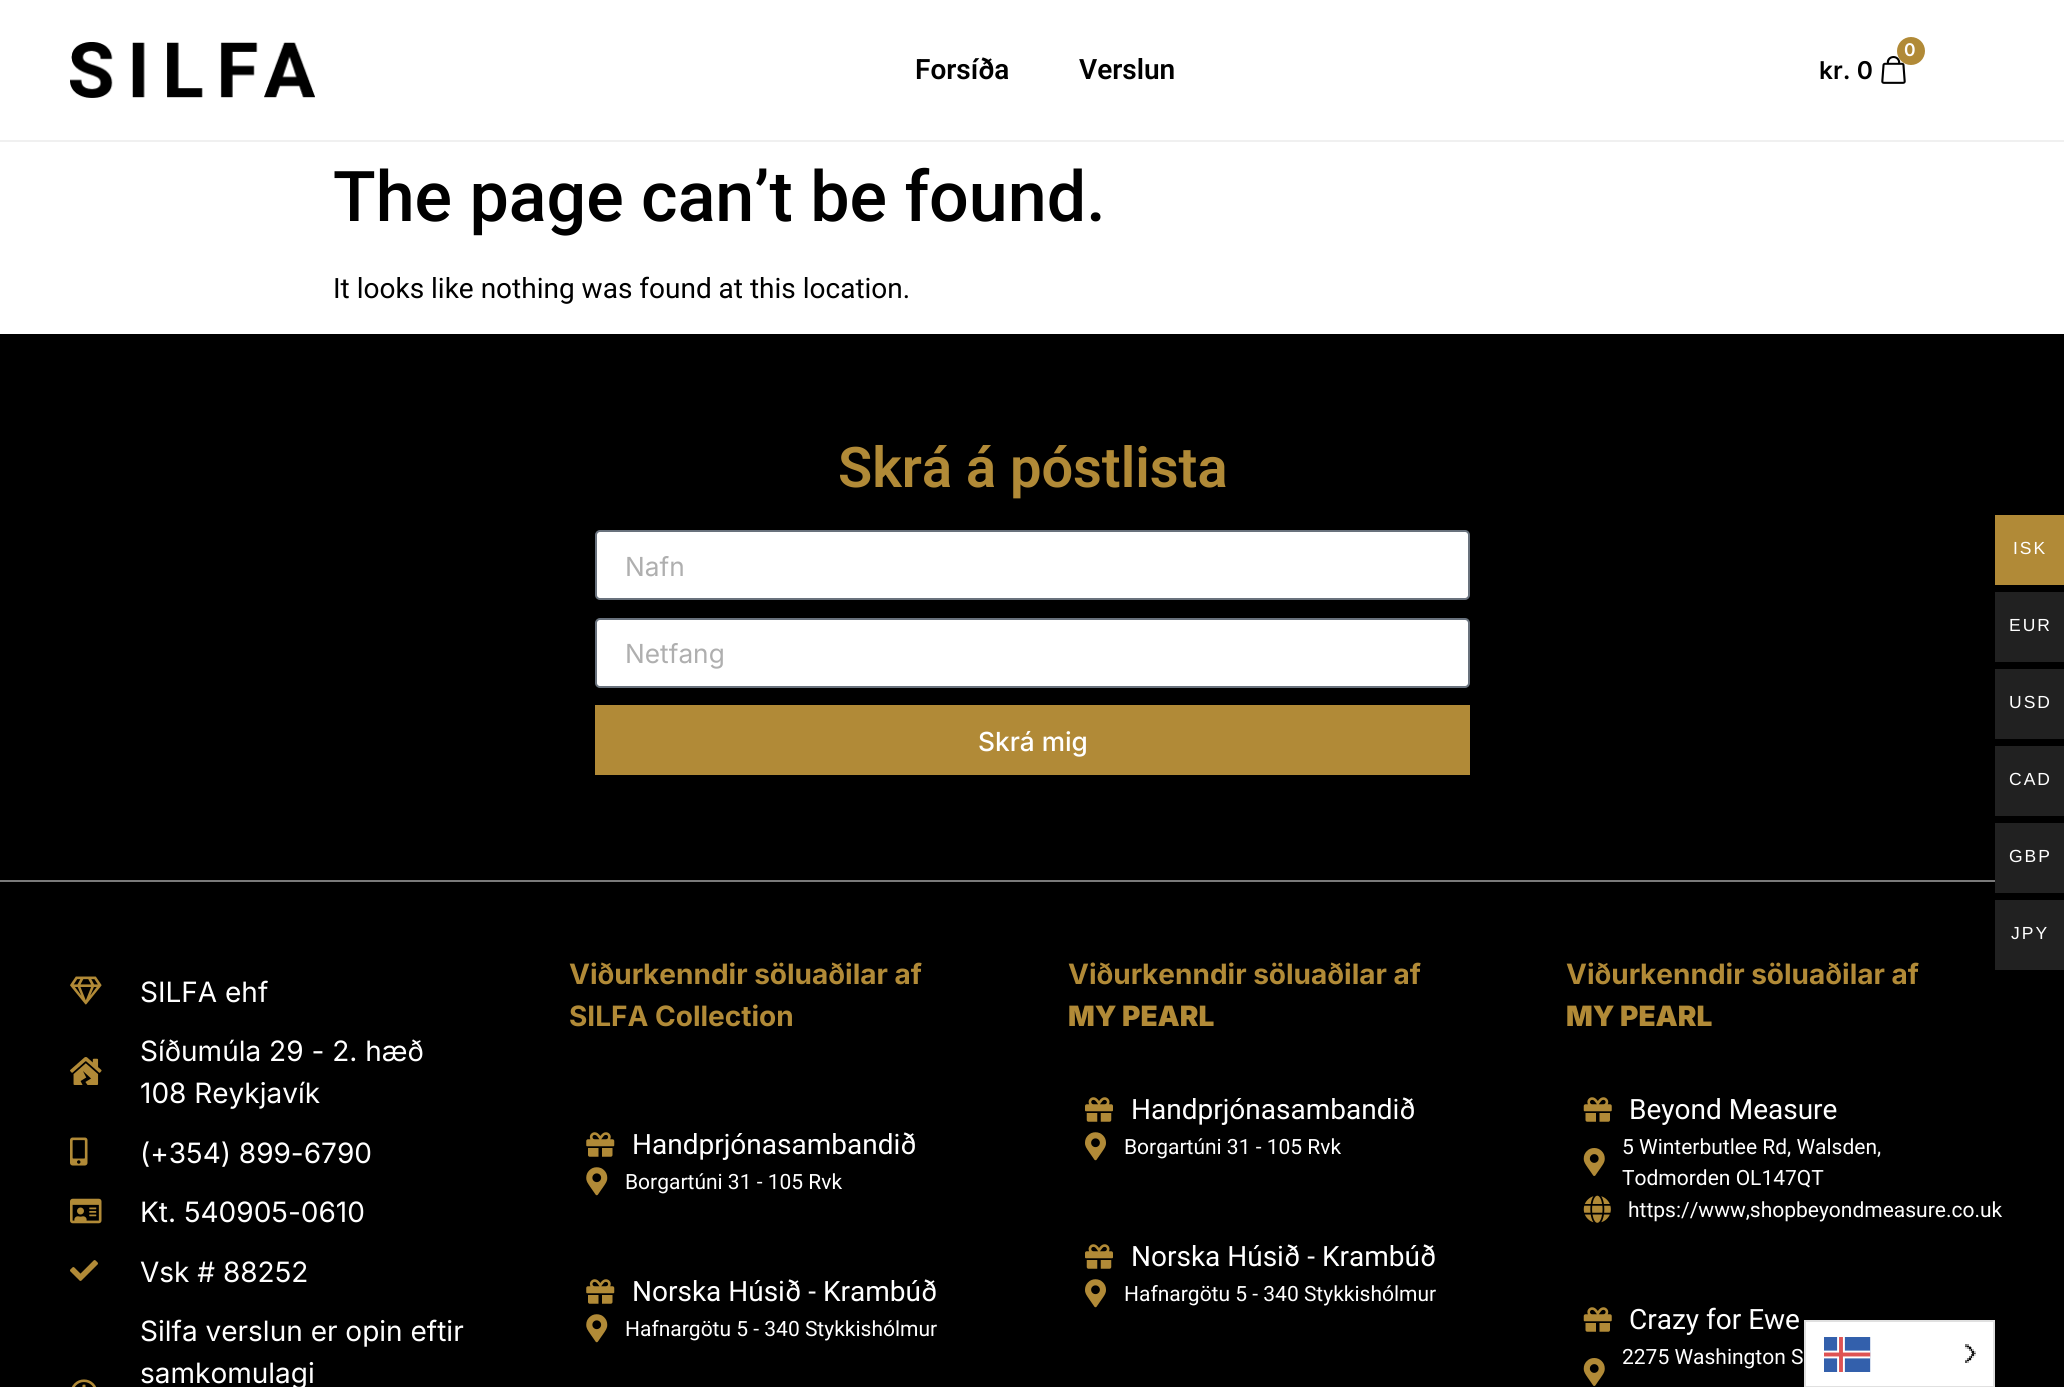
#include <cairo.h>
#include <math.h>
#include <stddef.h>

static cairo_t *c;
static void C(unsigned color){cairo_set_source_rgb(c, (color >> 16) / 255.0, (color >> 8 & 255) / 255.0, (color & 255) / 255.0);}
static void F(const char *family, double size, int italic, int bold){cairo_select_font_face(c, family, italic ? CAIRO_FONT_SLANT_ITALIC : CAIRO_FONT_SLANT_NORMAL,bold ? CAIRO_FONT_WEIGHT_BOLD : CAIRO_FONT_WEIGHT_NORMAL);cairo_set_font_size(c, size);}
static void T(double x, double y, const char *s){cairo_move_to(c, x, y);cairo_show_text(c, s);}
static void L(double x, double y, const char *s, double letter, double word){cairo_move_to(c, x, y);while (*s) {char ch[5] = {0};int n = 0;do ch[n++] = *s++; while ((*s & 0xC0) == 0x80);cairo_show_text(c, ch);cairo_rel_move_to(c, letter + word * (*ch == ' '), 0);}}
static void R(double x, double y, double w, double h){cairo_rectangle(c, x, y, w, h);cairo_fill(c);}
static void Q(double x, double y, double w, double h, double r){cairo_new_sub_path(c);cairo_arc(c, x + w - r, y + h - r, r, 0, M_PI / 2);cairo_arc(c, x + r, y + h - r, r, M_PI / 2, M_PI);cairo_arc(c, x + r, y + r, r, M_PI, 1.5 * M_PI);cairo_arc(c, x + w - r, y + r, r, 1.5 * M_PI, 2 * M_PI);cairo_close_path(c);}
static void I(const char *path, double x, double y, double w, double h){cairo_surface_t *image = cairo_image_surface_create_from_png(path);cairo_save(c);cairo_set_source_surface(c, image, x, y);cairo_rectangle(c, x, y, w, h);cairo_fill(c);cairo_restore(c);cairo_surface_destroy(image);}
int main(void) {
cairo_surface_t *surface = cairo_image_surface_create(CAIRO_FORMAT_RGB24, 2064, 1387);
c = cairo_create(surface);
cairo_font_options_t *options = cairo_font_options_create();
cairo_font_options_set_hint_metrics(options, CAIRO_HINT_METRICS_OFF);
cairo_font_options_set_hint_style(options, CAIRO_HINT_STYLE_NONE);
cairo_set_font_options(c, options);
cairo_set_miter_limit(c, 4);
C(0xffffff);
cairo_paint(c);
C(0xf0f0f0);
R(0,140,2064,2);
I("1.png",70,42,245,56);
F("Roboto SemiBold",28,0,0);
C(0x000000);
T(915,79,"Forsíða");
T(1079,79,"Verslun");
I("2.png",1881,56,25,28);
C(0xb18a37);
cairo_arc(c,1911,51,14,0,2 * M_PI);
cairo_fill(c);
F("Inter SemiBold",17.5,0,0);
C(0xffffff);
T(1904,56,"0");
F("Inter SemiBold",24.5,0,0);
C(0x000000);
T(1819,79,"kr. 0");
F("Roboto Medium",70,0,0);
T(333,221,"The page can’t be found.");
F("Roboto",28,0,0);
T(333,298,"It looks like nothing was found at this location.");
R(0,334,2064,546);
C(0x7a7a7a);
R(0,880,1995,2);
F("Roboto SemiBold",56,0,0);
C(0xb18a37);
T(838,487,"Skrá á póstlista");
C(0xffffff);
Q(596,531,873,68,4);
cairo_fill_preserve(c);
C(0x69727d);
cairo_stroke(c);
F("Inter",26.25,0,0);
C(0xafafaf);
T(625,576,"Nafn");
C(0xffffff);
Q(596,619,873,68,4);
cairo_fill_preserve(c);
C(0x69727d);
cairo_stroke(c);
C(0xafafaf);
T(625,663,"Netfang");
C(0xb18a37);
R(595,705,875,70);
F("Inter Medium",26.25,0,0);
C(0xffffff);
T(978,751,"Skrá mig");
C(0x000000);
R(0,882,2064,505);
I("3.png",70,976,32,29);
F("Inter",28,0,0);
C(0xffffff);
T(140,1002,"SILFA ehf");
I("4.png",70,1057,32,28);
T(140,1061,"Síðumúla 29 - 2. hæð");
T(140,1103,"108 Reykjavík");
I("5.png",70,1137,18,29);
T(140,1163,"(+354) 899-6790");
I("6.png",70,1198,32,26);
T(140,1222,"Kt. 540905-0610");
I("7.png",70,1260,28,21);
T(140,1282,"Vsk # 88252");
I("8.png",71,1379,25,8);
T(140,1341,"Silfa verslun er opin eftir");
T(140,1383,"samkomulagi");
F("Inter",28,0,1);
C(0xb18a37);
T(569,984,"Viðurkenndir söluaðilar af");
T(569,1026,"SILFA Collection");
I("9.png",586,1132,29,25);
F("Roboto",28,0,0);
C(0xffffff);
T(632,1154,"Handprjónasambandið");
I("10.png",586,1167,22,29);
F("Roboto",21,0,0);
T(625,1189,"Borgartúni 31 - 105 Rvk");
I("9.png",586,1279,29,25);
F("Roboto",28,0,0);
T(632,1301,"Norska Húsið - Krambúð");
I("10.png",586,1314,22,29);
F("Roboto",21,0,0);
T(625,1336,"Hafnargötu 5 - 340 Stykkishólmur");
F("Inter",28,0,1);
C(0xb18a37);
T(1068,984,"Viðurkenndir söluaðilar af");
F("Inter Black",28,0,0);
T(1068,1026,"MY PEARL");
I("11.png",1085,1097,28,25);
F("Roboto",28,0,0);
C(0xffffff);
T(1131,1119,"Handprjónasambandið");
I("12.png",1085,1132,21,29);
F("Roboto",21,0,0);
T(1124,1154,"Borgartúni 31 - 105 Rvk");
I("11.png",1085,1244,28,25);
F("Roboto",28,0,0);
T(1131,1266,"Norska Húsið - Krambúð");
I("12.png",1085,1279,21,29);
F("Roboto",21,0,0);
T(1124,1301,"Hafnargötu 5 - 340 Stykkishólmur");
F("Inter",28,0,1);
C(0xb18a37);
T(1566,984,"Viðurkenndir söluaðilar af");
F("Inter Black",28,0,0);
T(1566,1026,"MY PEARL");
I("13.png",1583,1097,29,25);
F("Roboto",28,0,0);
C(0xffffff);
T(1629,1119,"Beyond Measure");
I("14.png",1583,1148,22,28);
F("Roboto",21,0,0);
T(1622,1154,"5 Winterbutlee Rd, Walsden,");
T(1622,1185,"Todmorden OL147QT");
I("15.png",1583,1195,28,28);
T(1628,1217,"https://www,shopbeyondmeasure.co.uk");
I("13.png",1583,1307,29,25);
F("Roboto",28,0,0);
T(1629,1329,"Crazy for Ewe");
I("14.png",1583,1358,22,28);
F("Roboto",21,0,0);
T(1622,1364,"2275 Washington S");
C(0xb18a37);
R(1995,515,69,70);
F("Liberation Sans",17.5,0,0);
C(0xffffff);
L(2013,554,"ISK",2,0);
C(0x212121);
R(1995,592,69,70);
C(0xffffff);
L(2009,631,"EUR",2,0);
C(0x212121);
R(1995,669,69,70);
C(0xffffff);
L(2009,708,"USD",2,0);
C(0x212121);
R(1995,746,69,70);
C(0xffffff);
L(2009,785,"CAD",2,0);
C(0x212121);
R(1995,823,69,70);
C(0xffffff);
L(2009,862,"GBP",2,0);
C(0x212121);
R(1995,900,69,70);
C(0xffffff);
L(2011,939,"JPY",2,0);
cairo_rectangle(c,1805,1321,189,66);
cairo_fill_preserve(c);
C(0xe0e0e0);
cairo_stroke(c);
I("16.png",1824,1337,47,35);
I("17.png",1965,1344,11,19);
cairo_surface_write_to_png(surface, "o.png");
cairo_font_options_destroy(options);
cairo_destroy(c);
cairo_surface_destroy(surface);
return 0;
}
